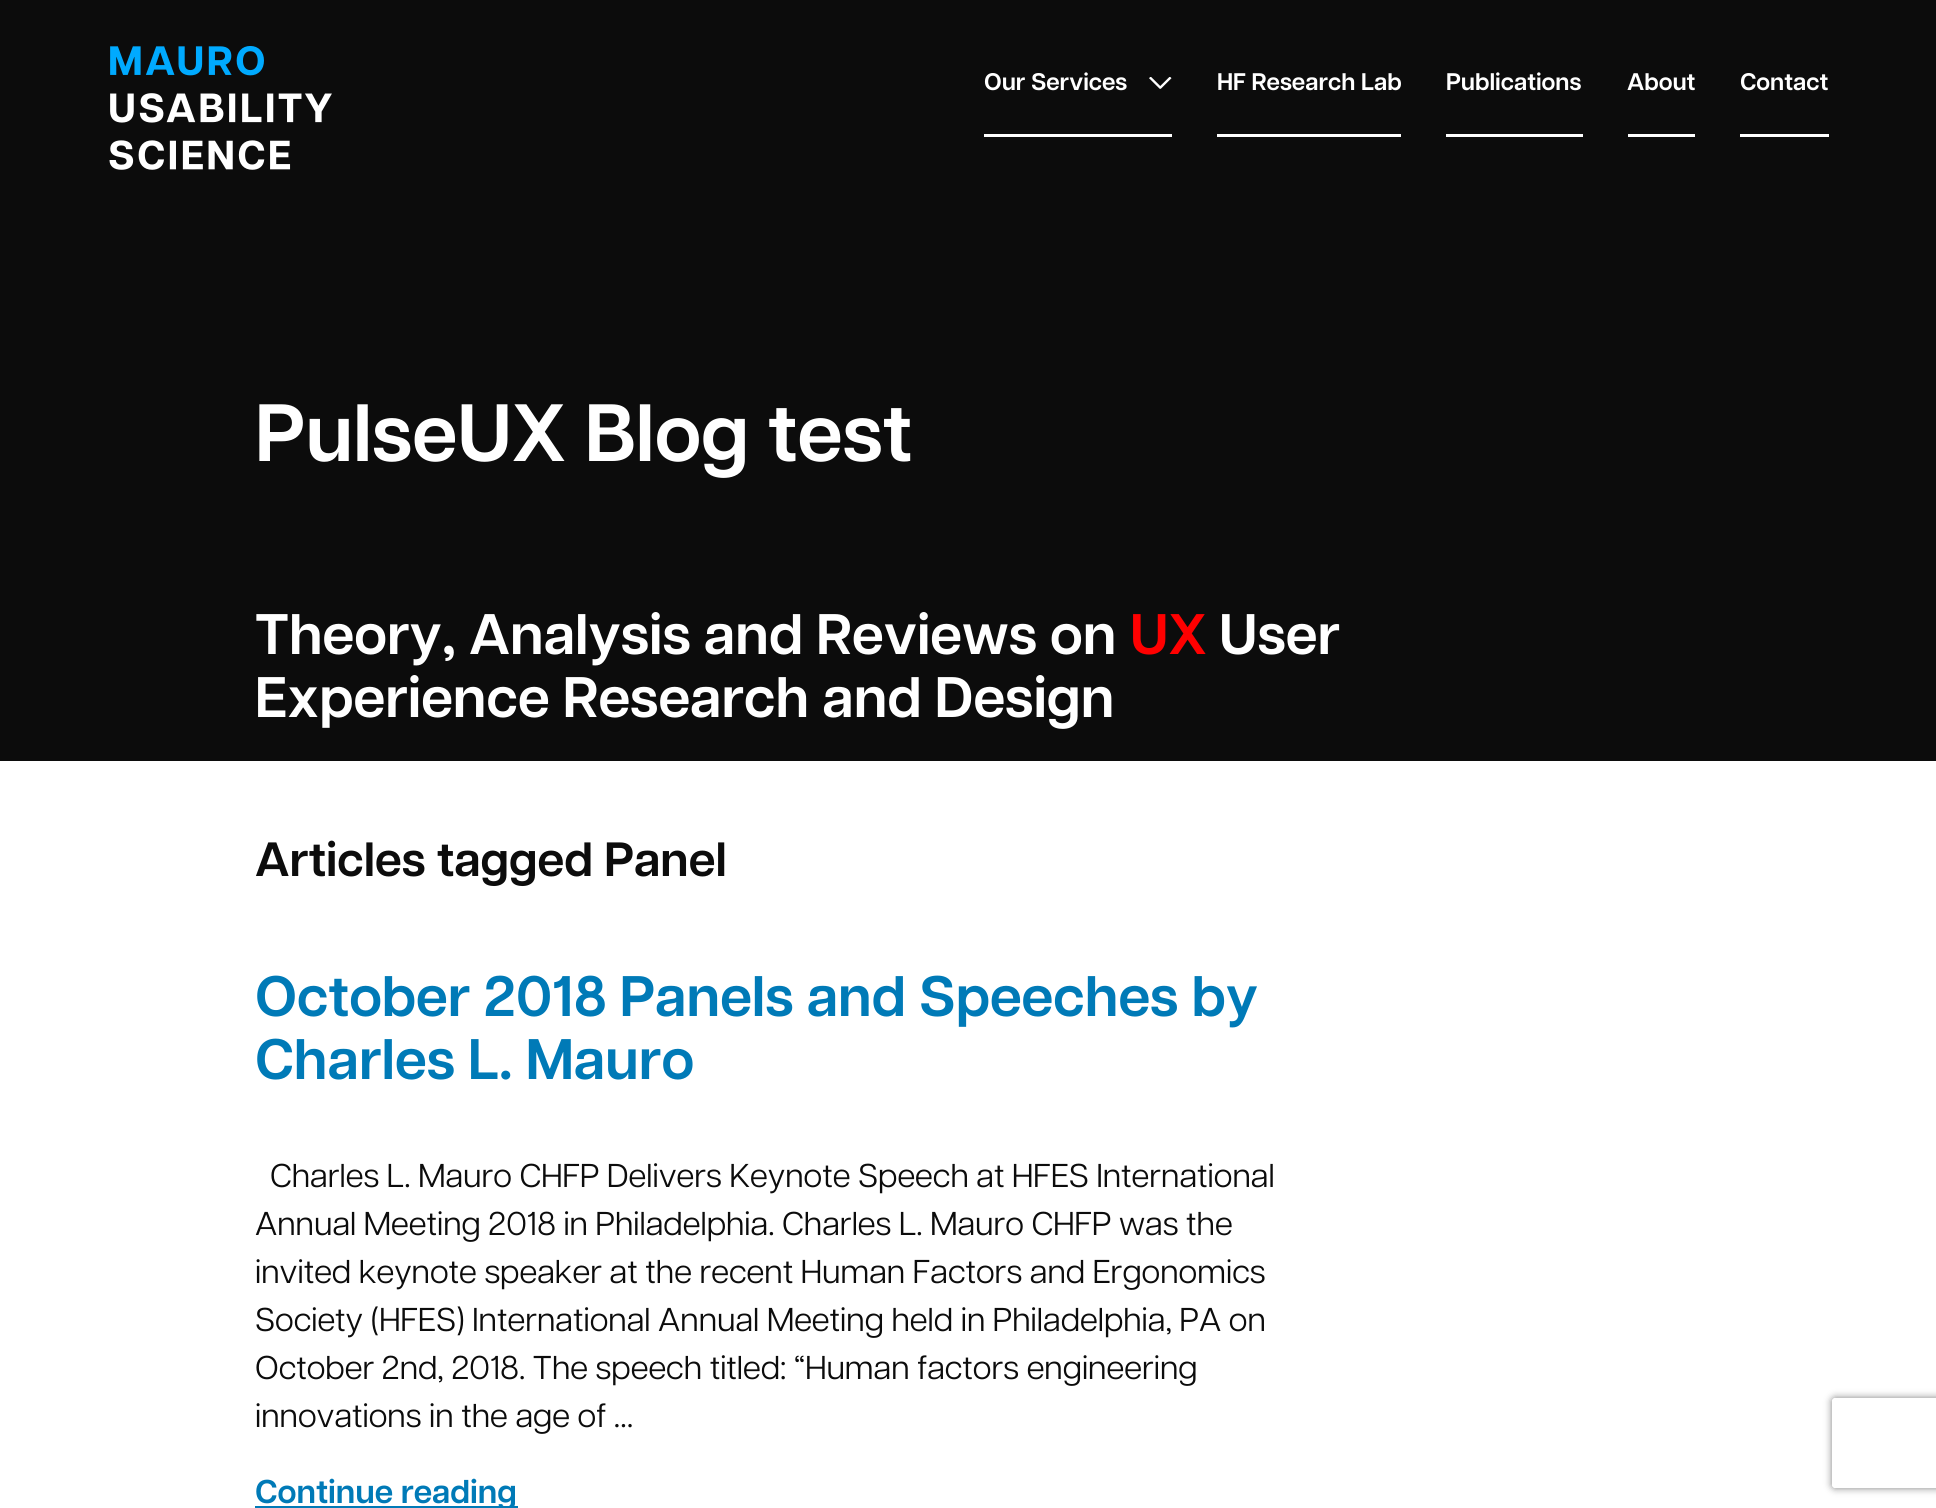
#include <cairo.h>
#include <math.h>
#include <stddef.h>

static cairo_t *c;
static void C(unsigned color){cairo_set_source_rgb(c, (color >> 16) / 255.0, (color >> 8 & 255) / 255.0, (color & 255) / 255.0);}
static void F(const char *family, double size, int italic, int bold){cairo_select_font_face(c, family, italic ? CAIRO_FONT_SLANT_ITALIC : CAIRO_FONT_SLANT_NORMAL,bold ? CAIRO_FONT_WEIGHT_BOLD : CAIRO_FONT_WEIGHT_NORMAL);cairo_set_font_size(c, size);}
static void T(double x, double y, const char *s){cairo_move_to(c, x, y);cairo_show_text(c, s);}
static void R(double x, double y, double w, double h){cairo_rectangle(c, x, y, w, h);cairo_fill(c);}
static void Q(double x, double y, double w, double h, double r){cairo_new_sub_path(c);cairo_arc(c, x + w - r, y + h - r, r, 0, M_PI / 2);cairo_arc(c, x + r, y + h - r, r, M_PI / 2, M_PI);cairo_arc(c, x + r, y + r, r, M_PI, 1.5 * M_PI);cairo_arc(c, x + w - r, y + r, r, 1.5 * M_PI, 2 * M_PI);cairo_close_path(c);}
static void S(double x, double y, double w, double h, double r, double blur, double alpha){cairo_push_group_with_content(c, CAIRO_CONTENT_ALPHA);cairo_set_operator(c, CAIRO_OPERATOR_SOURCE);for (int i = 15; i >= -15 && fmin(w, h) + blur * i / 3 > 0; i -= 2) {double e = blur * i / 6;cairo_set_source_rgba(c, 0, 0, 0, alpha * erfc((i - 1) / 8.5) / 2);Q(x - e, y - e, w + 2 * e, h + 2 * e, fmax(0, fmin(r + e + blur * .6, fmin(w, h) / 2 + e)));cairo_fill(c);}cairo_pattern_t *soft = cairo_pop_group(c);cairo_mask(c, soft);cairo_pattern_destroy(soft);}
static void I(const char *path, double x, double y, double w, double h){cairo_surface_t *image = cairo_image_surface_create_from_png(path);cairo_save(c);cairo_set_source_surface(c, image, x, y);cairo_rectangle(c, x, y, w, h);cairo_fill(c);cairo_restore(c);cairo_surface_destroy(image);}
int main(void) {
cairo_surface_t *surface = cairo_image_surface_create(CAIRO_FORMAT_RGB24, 1936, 1508);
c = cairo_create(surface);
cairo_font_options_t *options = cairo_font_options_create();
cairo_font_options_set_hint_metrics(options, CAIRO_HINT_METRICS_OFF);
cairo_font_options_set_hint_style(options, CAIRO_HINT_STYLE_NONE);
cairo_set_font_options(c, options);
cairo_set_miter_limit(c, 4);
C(0xffffff);
cairo_paint(c);
C(0x0c0c0c);
R(0,0,1936,761);
I("1.png",109,46,223,124);
I("2.png",1149,77,23,12);
C(0xffffff);
R(984,134,188,3);
F("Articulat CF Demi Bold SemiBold",24,0,0);
T(984,90,"Our Services");
R(1217,134,184,3);
T(1217,90,"HF Research Lab");
R(1446,134,137,3);
T(1446,90,"Publications");
R(1628,134,67,3);
T(1627,90,"About");
R(1740,134,89,3);
T(1740,90,"Contact");
F("Articulat CF Demi Bold SemiBold",81,0,0);
T(255,461,"PulseUX Blog test");
F("Articulat CF Demi Bold SemiBold",57,0,0);
T(255,654,"Theory, Analysis and Reviews on");
C(0xff0000);
T(1130,654,"UX");
C(0xffffff);
T(1219,654,"User");
T(255,717,"Experience Research and Design");
F("Articulat CF Demi Bold SemiBold",48,0,0);
C(0x0c0c0c);
T(255,876,"Articles tagged Panel");
F("Articulat CF Demi Bold SemiBold",57,0,0);
C(0x007ab7);
T(255,1016,"October 2018 Panels and Speeches by");
T(255,1079,"Charles L. Mauro");
F("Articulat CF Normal",33,0,0);
C(0x0c0c0c);
T(270,1187,"Charles L. Mauro CHFP Delivers Keynote Speech at HFES International");
T(255,1235,"Annual Meeting 2018 in Philadelphia. Charles L. Mauro CHFP was the");
T(255,1283,"invited keynote speaker at the recent Human Factors and Ergonomics");
T(255,1331,"Society (HFES) International Annual Meeting held in Philadelphia, PA on");
T(255,1379,"October 2nd, 2018. The speech titled: “Human factors engineering");
T(255,1427,"innovations in the age of …");
C(0x007ab7);
R(255,1506,263,2);
F("Articulat CF Demi Bold SemiBold",33,0,0);
T(255,1503,"Continue reading");
cairo_save(c);
cairo_set_fill_rule(c,CAIRO_FILL_RULE_EVEN_ODD);
cairo_new_path(c);
cairo_move_to(c,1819,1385);
cairo_line_to(c,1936,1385);
cairo_line_to(c,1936,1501);
cairo_line_to(c,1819,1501);
cairo_close_path(c);
cairo_move_to(c,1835,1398);
cairo_line_to(c,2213,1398);
cairo_curve_to(c,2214.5,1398,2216,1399.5,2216,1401);
cairo_line_to(c,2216,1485);
cairo_curve_to(c,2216,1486.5,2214.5,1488,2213,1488);
cairo_line_to(c,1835,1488);
cairo_curve_to(c,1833.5,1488,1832,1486.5,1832,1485);
cairo_line_to(c,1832,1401);
cairo_curve_to(c,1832,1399.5,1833.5,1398,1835,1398);
cairo_close_path(c);
cairo_clip(c);
C(0x808080);
S(1832,1398,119,90,3,4,1);
cairo_restore(c);
cairo_surface_write_to_png(surface, "o.png");
cairo_font_options_destroy(options);
cairo_destroy(c);
cairo_surface_destroy(surface);
return 0;
}
